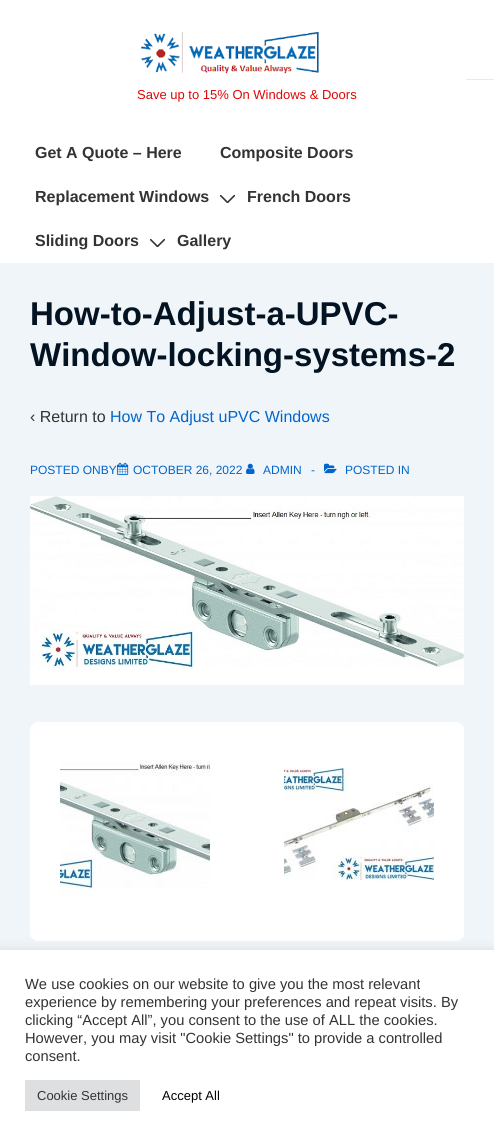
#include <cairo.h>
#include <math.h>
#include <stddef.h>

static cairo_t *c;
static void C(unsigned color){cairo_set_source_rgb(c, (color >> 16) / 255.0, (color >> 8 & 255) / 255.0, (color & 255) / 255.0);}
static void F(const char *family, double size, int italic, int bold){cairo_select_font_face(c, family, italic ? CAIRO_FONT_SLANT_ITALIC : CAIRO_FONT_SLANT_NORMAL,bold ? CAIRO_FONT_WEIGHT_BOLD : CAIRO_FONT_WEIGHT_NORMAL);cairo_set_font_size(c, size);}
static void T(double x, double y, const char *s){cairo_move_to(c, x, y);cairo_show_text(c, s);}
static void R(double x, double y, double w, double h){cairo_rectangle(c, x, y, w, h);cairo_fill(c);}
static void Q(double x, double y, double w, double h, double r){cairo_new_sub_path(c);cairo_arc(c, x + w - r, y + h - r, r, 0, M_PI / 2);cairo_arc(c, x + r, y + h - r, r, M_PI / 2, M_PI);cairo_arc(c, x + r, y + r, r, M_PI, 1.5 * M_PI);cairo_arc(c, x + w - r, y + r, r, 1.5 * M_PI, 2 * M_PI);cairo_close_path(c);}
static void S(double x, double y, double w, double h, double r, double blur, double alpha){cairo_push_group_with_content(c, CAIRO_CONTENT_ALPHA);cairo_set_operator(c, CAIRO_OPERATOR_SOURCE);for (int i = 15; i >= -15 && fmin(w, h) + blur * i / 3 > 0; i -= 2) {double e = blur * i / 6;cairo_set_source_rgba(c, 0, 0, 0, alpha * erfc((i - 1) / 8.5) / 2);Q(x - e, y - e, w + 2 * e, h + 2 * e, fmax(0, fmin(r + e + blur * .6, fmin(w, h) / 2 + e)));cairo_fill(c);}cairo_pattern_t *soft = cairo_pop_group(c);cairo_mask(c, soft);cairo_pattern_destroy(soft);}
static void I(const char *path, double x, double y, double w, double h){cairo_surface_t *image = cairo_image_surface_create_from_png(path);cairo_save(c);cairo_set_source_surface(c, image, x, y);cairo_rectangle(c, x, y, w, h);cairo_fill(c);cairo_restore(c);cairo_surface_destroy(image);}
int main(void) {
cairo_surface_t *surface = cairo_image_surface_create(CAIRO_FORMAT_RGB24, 494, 1141);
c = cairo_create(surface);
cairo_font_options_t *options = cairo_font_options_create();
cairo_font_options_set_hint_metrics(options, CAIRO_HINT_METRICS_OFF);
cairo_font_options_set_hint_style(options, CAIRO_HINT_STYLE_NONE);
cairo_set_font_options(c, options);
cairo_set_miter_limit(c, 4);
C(0xf0f5fa);
cairo_paint(c);
C(0xffffff);
R(0,0,494,263);
C(0xeaeaea);
R(466,79,28,1);
I("1.png",141,32,178,42);
F("Liberation Sans",13,0,0);
C(0xdd0808);
T(137,99,"Save up to 15% On Windows & Doors");
F("Liberation Sans",16,0,1);
C(0x333333);
T(35,158,"Get A Quote – Here");
T(220,158,"Composite Doors");
T(35,202,"Replacement Windows");
cairo_save(c);
cairo_rectangle(c,220,195,15,8);
cairo_clip(c);
cairo_new_path(c);
cairo_move_to(c,220.5,195.5);
cairo_line_to(c,227.5,202.5);
cairo_line_to(c,234.5,195.5);
cairo_set_line_width(c,1.6);
cairo_set_line_cap(c,CAIRO_LINE_CAP_ROUND);
cairo_stroke(c);
cairo_restore(c);
T(247,202,"French Doors");
T(35,246,"Sliding Doors");
cairo_save(c);
cairo_rectangle(c,150,239,15,8);
cairo_clip(c);
cairo_new_path(c);
cairo_move_to(c,150.5,239.5);
cairo_line_to(c,157.5,246.5);
cairo_line_to(c,164.5,239.5);
cairo_set_line_width(c,1.6);
cairo_set_line_cap(c,CAIRO_LINE_CAP_ROUND);
cairo_stroke(c);
cairo_restore(c);
T(177,246,"Gallery");
F("Liberation Sans",33,0,1);
C(0x031322);
T(30,325,"How-to-Adjust-a-UPVC-");
T(30,366,"Window-locking-systems-2");
F("Liberation Sans",16,0,0);
C(0x333333);
T(30,422,"‹ Return to");
C(0x0066cc);
T(110,422,"How To Adjust uPVC Windows");
F("Liberation Sans",12,0,0);
T(30,474,"POSTED ONBY");
I("2.png",117,462,12,13);
T(133,474,"OCTOBER 26, 2022");
I("3.png",246,463,9,11);
T(263,474,"ADMIN");
T(311,474,"-");
I("4.png",324,463,13,11);
T(345,474,"POSTED IN");
I("5.png",30,496,434,189);
C(0xffffff);
Q(30,722,434,219,8);
cairo_fill(c);
I("6.png",60,760,150,136);
I("7.png",284,767,150,114);
C(0xacabab);
S(0,949,494,191,0,5,.3);
C(0xffffff);
R(0,950,494,191);
F("Liberation Sans",14.7,0,0);
C(0x333333);
T(25,989,"We use cookies on our website to give you the most relevant");
T(25,1007,"experience by remembering your preferences and repeat visits. By");
T(25,1025,"clicking “Accept All”, you consent to the use of ALL the cookies.");
T(25,1043,"However, you may visit \"Cookie Settings\" to provide a controlled");
T(25,1061,"consent.");
C(0xdedfe0);
R(25,1080,115,31);
F("Liberation Sans",13,0,0);
C(0x333333);
T(37,1100,"Cookie Settings");
C(0x000000);
T(162,1100,"Accept All");
cairo_surface_write_to_png(surface, "o.png");
cairo_font_options_destroy(options);
cairo_destroy(c);
cairo_surface_destroy(surface);
return 0;
}
